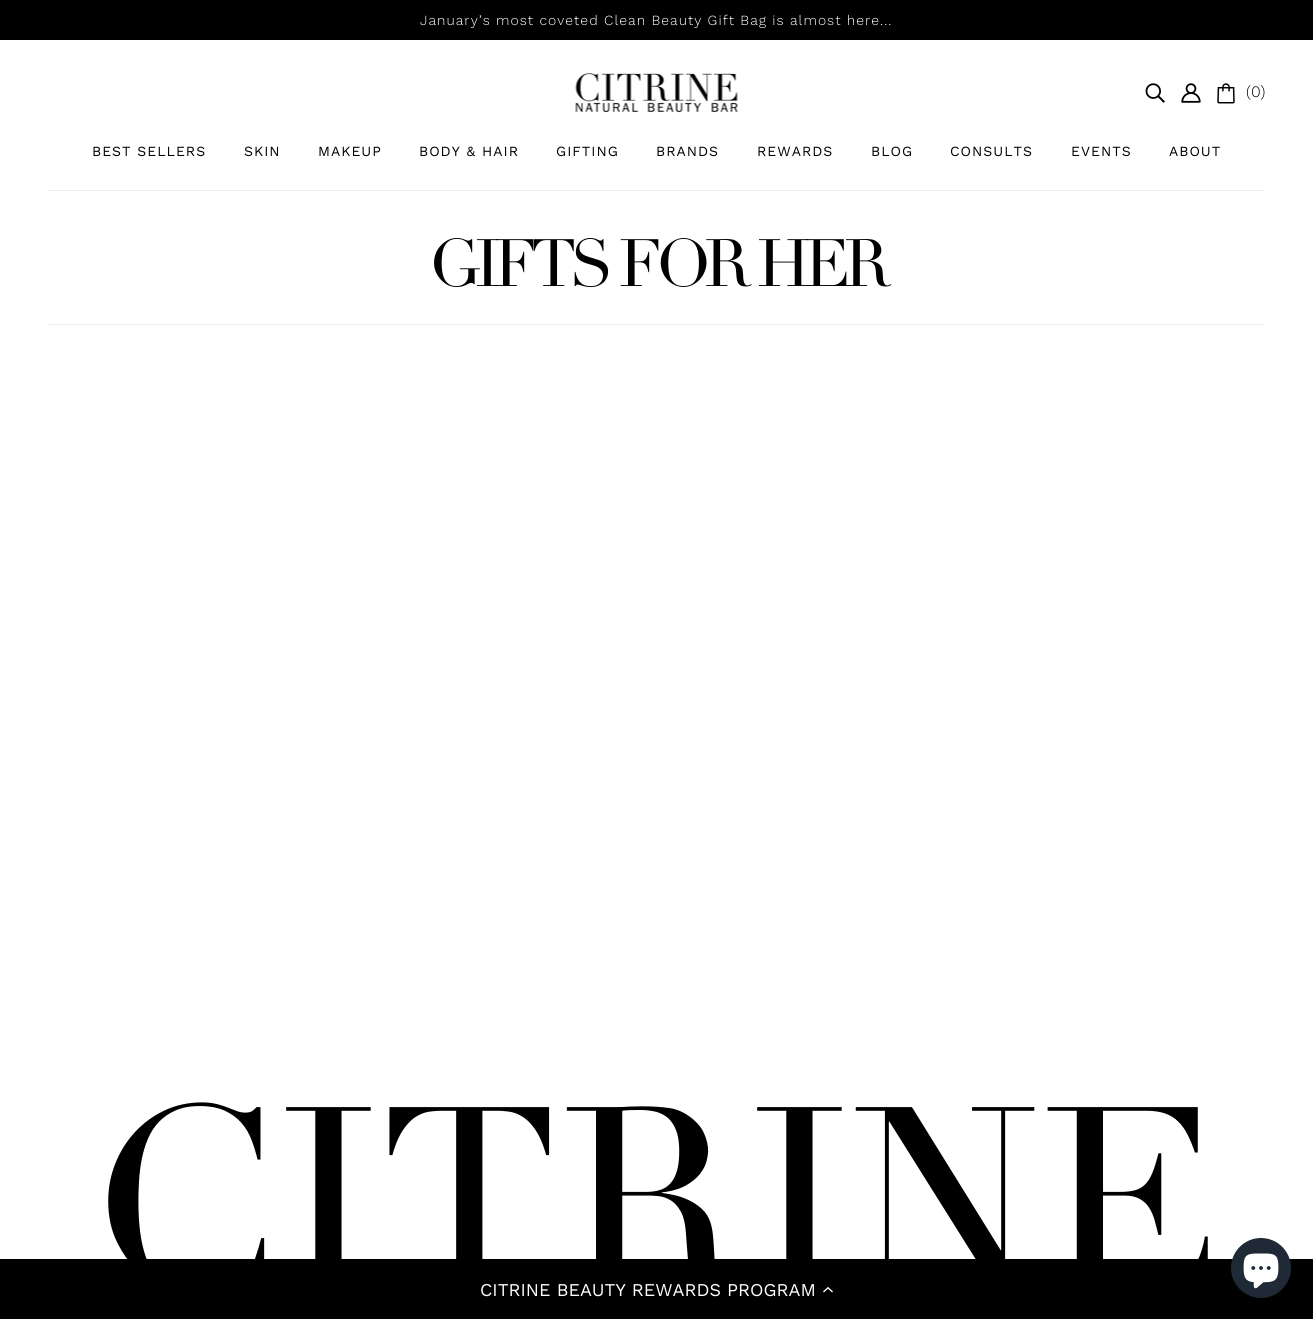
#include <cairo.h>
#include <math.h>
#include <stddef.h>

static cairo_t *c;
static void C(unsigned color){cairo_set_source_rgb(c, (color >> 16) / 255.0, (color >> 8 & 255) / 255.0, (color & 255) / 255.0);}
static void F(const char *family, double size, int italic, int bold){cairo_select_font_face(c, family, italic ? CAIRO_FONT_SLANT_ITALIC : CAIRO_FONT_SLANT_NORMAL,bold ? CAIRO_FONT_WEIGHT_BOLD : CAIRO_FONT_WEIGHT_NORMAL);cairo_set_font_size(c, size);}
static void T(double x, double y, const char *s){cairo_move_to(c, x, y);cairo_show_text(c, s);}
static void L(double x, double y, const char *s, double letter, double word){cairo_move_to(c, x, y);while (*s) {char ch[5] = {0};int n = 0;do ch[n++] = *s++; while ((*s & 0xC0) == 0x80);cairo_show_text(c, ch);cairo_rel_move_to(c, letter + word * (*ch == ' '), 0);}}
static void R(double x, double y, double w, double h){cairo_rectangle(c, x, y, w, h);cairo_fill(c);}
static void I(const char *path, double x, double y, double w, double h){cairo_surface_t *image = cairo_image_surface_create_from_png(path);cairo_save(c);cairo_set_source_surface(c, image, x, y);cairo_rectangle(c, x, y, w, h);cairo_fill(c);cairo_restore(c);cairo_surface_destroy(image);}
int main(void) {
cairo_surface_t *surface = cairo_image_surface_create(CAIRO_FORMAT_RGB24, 1313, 1319);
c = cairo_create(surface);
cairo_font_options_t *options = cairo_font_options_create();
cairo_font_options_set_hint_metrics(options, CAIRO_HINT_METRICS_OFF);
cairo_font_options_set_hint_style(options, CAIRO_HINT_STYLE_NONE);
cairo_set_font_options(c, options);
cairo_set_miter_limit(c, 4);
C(0xffffff);
cairo_paint(c);
C(0x000000);
R(0,0,1313,40);
F("Work Sans Light",14,0,0);
C(0xffffff);
L(420,25,"January’s most coveted Clean Beauty Gift Bag is almost here...",1,0);
I("1.png",575,73,163,40);
I("2.png",1145,83,20,20);
I("3.png",1181,83,20,20);
I("4.png",1217,83,18,21);
F("Work Sans Light",16,0,0);
C(0x000000);
T(1246,97,"(0)");
F("Work Sans",14,0,0);
L(92,156,"BEST SELLERS",1,0);
L(244,156,"SKIN",1,0);
L(318,156,"MAKEUP",1,0);
L(419,156,"BODY & HAIR",1,0);
L(556,156,"GIFTING",1,0);
L(656,156,"BRANDS",1,0);
L(757,156,"REWARDS",1,0);
L(871,156,"BLOG",1,0);
L(950,156,"CONSULTS",1,0);
L(1071,156,"EVENTS",1,0);
L(1169,156,"ABOUT",1,0);
C(0xebebeb);
R(48,190,1217,1);
F("Didot",65.75,0,0);
C(0x000000);
L(429,286,"GIFTS FOR HER",-6.5,0);
C(0xebebeb);
R(48,324,1217,1);
F("Didot",262.5,0,0);
C(0x000000);
T(88,1294,"CITRINE");
R(0,1259,1313,60);
F("Work Sans",18,0,0);
C(0xffffff);
T(480,1296,"CITRINE BEAUTY REWARDS PROGRAM");
I("5.png",823,1287,10,6);
C(0x202a36);
cairo_arc(c,1261,1268,30,0,2 * M_PI);
cairo_fill(c);
I("6.png",1243,1253,36,36);
cairo_surface_write_to_png(surface, "o.png");
cairo_font_options_destroy(options);
cairo_destroy(c);
cairo_surface_destroy(surface);
return 0;
}
